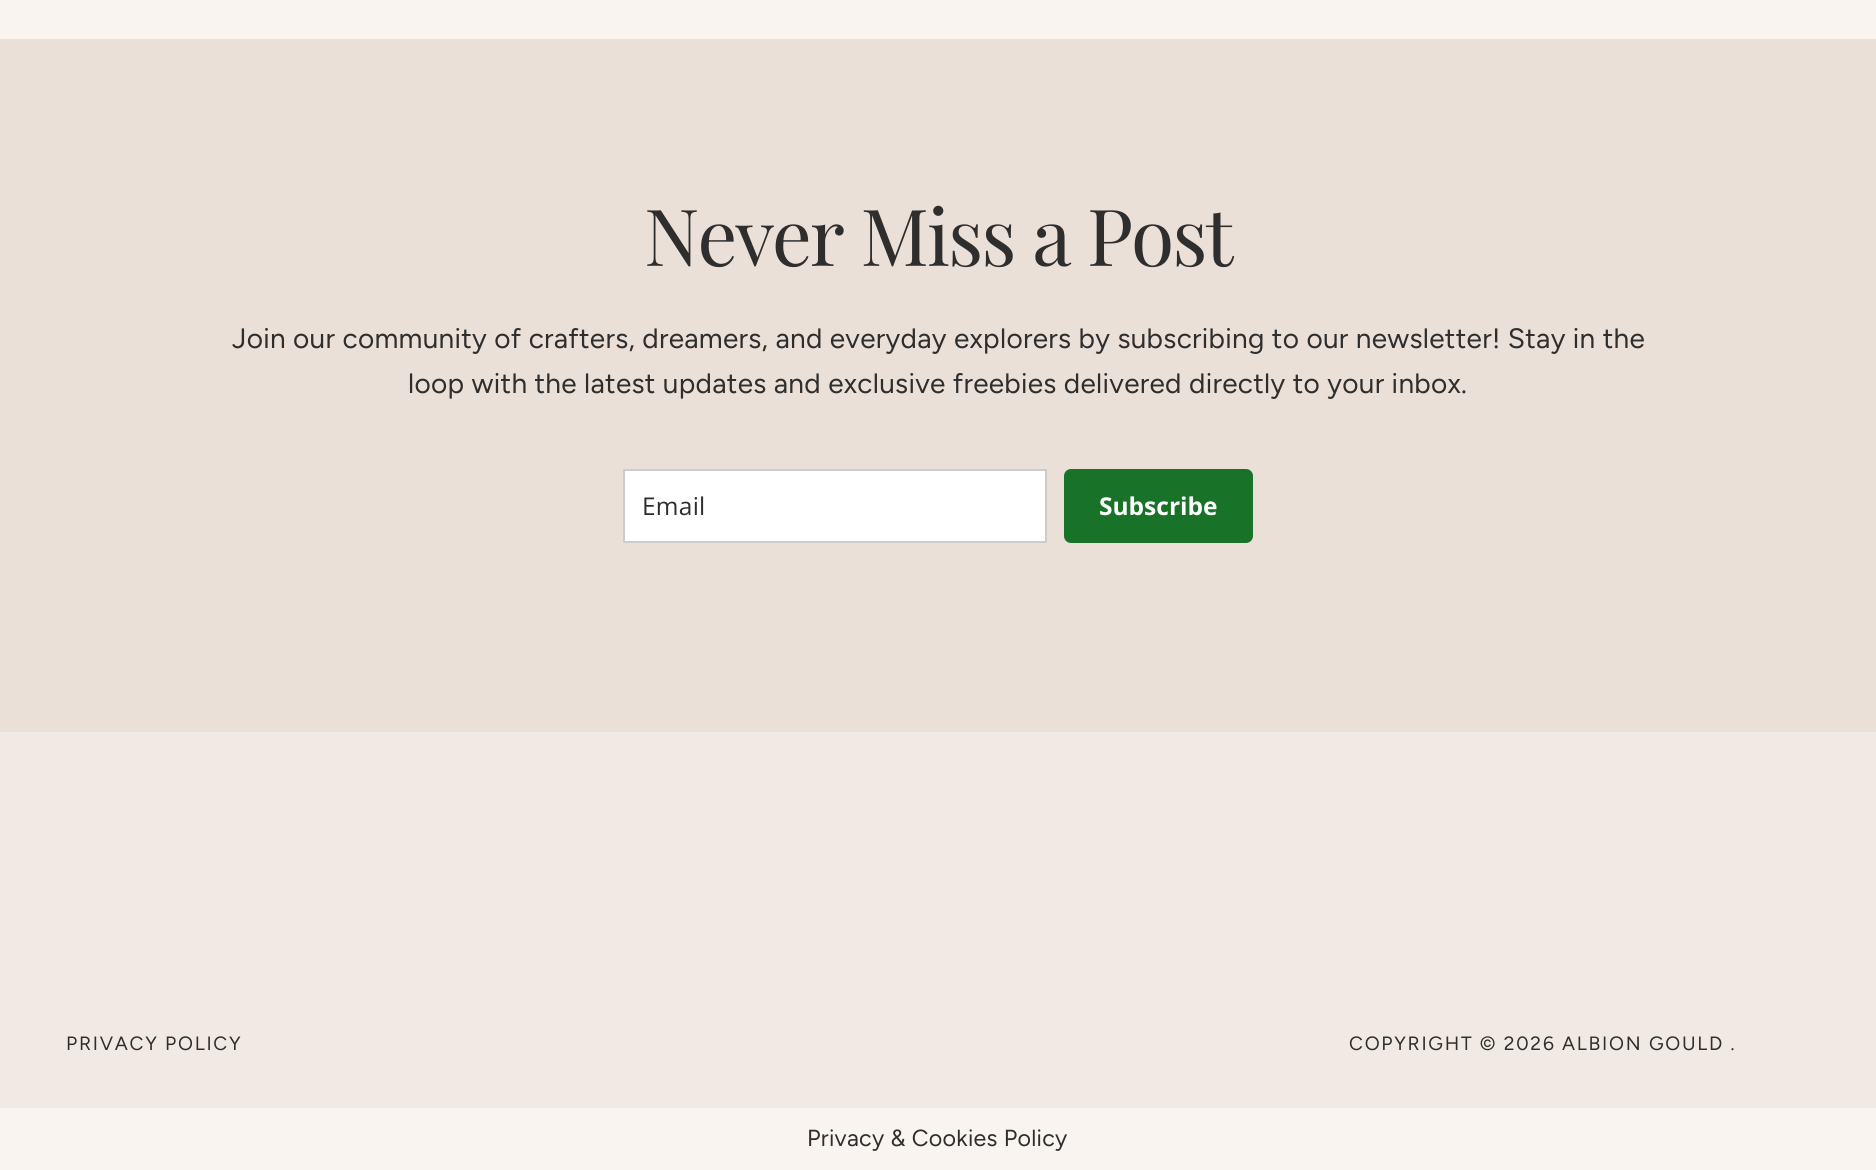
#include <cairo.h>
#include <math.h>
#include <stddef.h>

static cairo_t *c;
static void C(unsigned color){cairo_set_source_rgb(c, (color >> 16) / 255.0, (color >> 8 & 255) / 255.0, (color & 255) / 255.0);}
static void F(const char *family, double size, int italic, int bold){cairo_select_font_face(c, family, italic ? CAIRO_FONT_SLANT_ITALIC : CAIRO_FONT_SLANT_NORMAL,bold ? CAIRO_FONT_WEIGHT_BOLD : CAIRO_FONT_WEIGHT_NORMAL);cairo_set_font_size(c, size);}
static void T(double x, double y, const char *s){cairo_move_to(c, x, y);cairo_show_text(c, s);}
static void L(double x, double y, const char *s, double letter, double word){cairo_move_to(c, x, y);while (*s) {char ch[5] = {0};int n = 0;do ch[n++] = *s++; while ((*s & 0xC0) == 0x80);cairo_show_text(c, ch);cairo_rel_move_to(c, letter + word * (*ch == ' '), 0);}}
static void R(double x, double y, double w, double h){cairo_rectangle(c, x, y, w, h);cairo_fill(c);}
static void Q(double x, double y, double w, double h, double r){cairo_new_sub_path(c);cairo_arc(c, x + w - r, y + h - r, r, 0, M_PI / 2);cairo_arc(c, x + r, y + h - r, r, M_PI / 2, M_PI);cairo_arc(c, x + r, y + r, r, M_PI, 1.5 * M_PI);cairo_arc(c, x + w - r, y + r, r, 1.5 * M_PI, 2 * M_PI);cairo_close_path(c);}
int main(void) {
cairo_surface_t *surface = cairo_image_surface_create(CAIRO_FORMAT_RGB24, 1876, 1170);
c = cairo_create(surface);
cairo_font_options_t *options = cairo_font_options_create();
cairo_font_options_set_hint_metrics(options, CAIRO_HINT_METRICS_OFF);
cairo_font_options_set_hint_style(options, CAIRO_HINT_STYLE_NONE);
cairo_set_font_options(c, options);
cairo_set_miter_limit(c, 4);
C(0xf9f4ef);
cairo_paint(c);
C(0xf1eae4);
R(0,732,1876,376);
C(0xebe0d7);
R(0,39,1876,693);
F("Playfair Display",78.75,0,0);
C(0x2e2e2e);
L(644,266,"Never Miss a Post",-2,0);
F("Figtree",28,0,0);
L(232,348,"Join our community of crafters, dreamers, and everyday explorers by subscribing to our newsletter! Stay in the",.28,0);
L(408,393,"loop with the latest updates and exclusive freebies delivered directly to your inbox.",.28,0);
C(0xffffff);
cairo_rectangle(c,624,470,422,72);
cairo_fill_preserve(c);
C(0xcccccc);
cairo_stroke(c);
F("Open Sans",24.5,0,0);
C(0x2e2e2e);
L(642,515,"Email",.25,0);
C(0x187328);
Q(1065,470,187,72,6);
cairo_fill_preserve(c);
cairo_stroke(c);
F("Open Sans",24.5,0,1);
C(0xffffff);
T(1099,515,"Subscribe");
F("Figtree",19.25,0,0);
C(0x2e2e2e);
L(66,1050,"PRIVACY POLICY",1.75,0);
L(1349,1050,"COPYRIGHT © 2026 ALBION GOULD .",1.75,0);
F("Figtree",23.25,0,0);
L(807,1146,"Privacy & Cookies Policy",.28,0);
cairo_surface_write_to_png(surface, "o.png");
cairo_font_options_destroy(options);
cairo_destroy(c);
cairo_surface_destroy(surface);
return 0;
}
